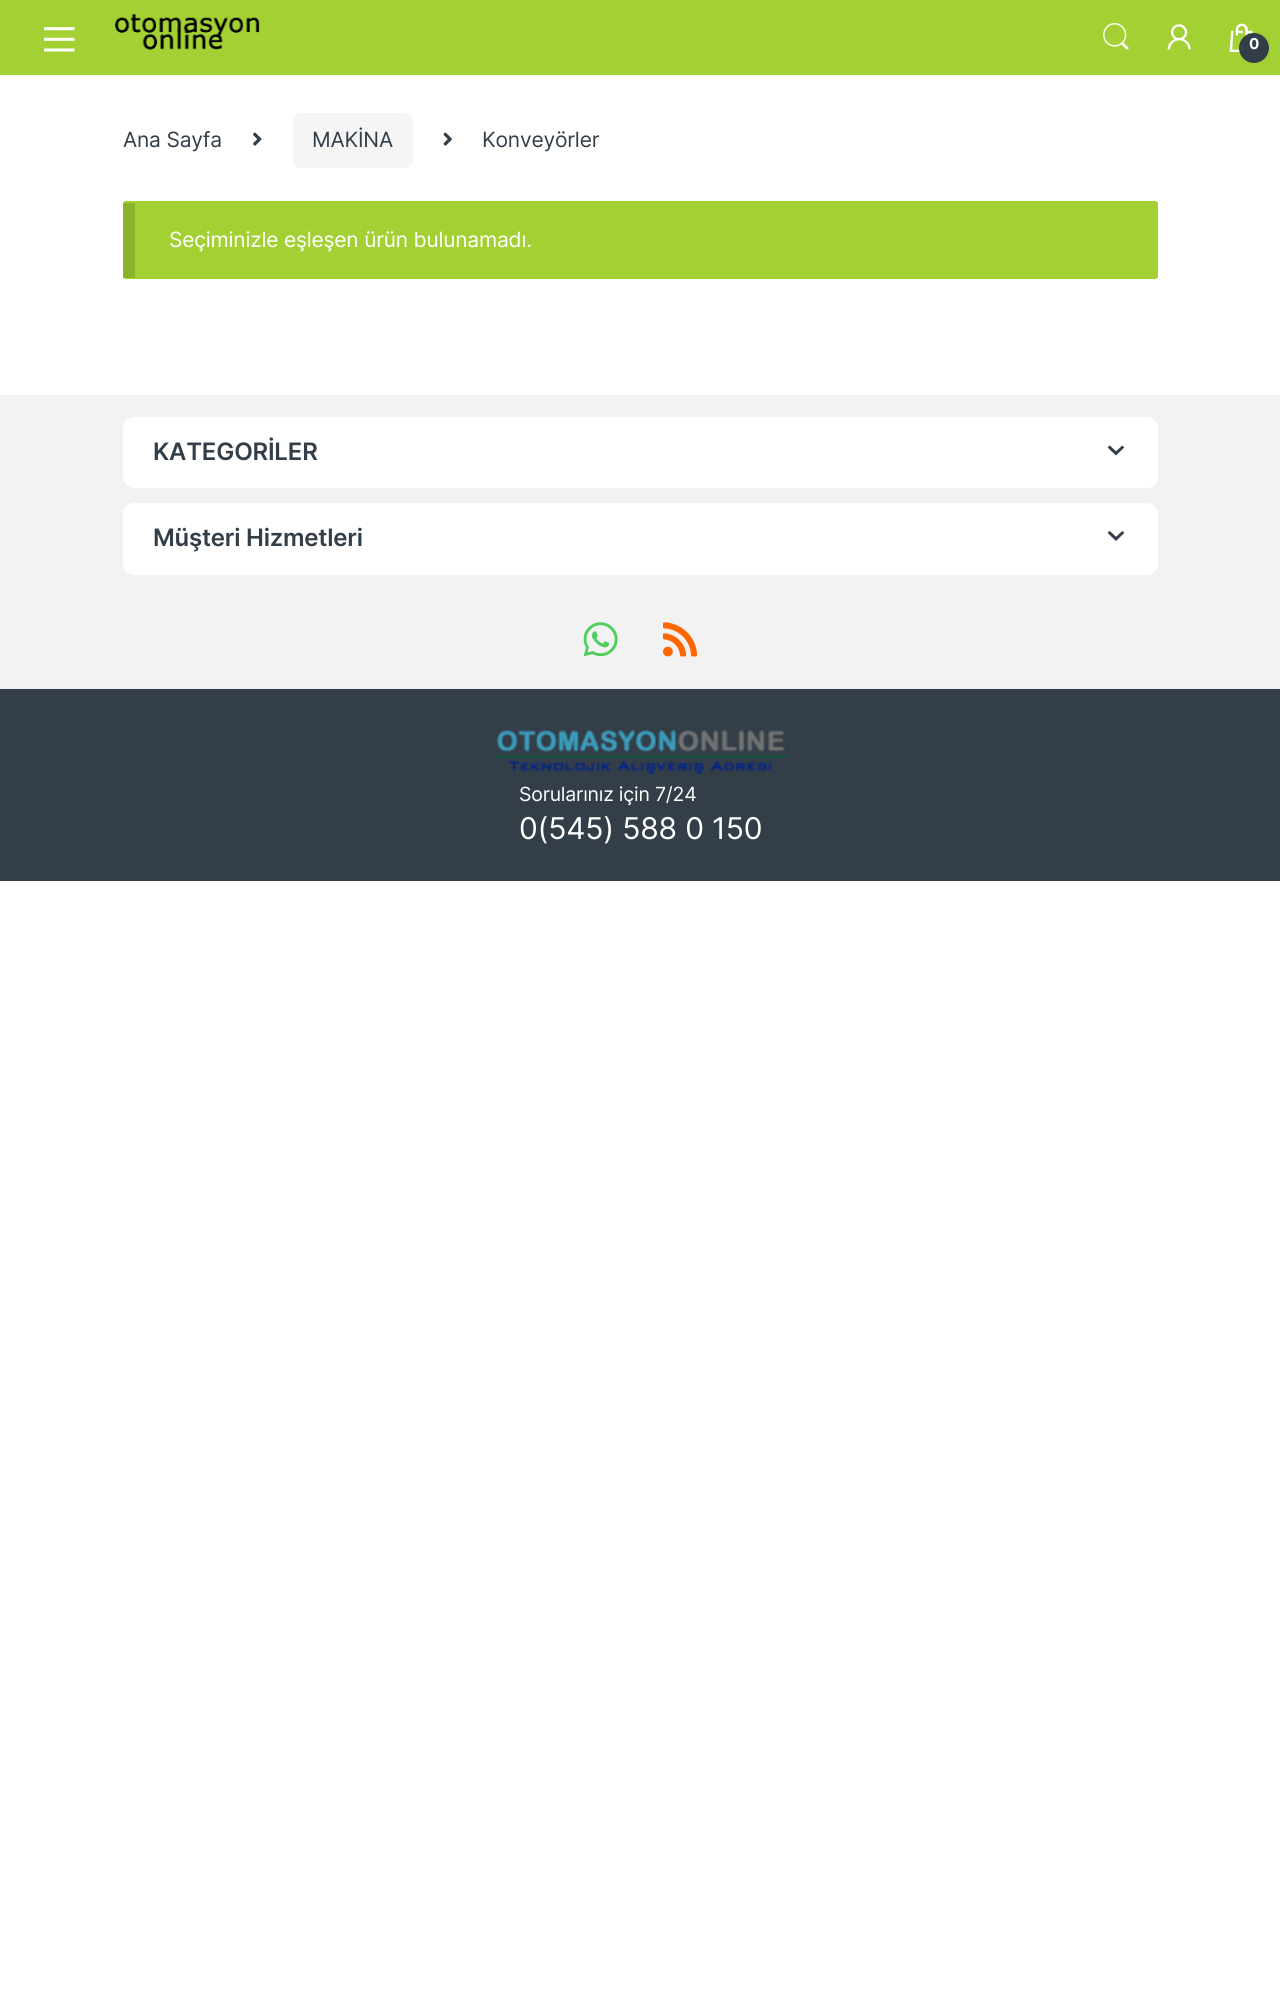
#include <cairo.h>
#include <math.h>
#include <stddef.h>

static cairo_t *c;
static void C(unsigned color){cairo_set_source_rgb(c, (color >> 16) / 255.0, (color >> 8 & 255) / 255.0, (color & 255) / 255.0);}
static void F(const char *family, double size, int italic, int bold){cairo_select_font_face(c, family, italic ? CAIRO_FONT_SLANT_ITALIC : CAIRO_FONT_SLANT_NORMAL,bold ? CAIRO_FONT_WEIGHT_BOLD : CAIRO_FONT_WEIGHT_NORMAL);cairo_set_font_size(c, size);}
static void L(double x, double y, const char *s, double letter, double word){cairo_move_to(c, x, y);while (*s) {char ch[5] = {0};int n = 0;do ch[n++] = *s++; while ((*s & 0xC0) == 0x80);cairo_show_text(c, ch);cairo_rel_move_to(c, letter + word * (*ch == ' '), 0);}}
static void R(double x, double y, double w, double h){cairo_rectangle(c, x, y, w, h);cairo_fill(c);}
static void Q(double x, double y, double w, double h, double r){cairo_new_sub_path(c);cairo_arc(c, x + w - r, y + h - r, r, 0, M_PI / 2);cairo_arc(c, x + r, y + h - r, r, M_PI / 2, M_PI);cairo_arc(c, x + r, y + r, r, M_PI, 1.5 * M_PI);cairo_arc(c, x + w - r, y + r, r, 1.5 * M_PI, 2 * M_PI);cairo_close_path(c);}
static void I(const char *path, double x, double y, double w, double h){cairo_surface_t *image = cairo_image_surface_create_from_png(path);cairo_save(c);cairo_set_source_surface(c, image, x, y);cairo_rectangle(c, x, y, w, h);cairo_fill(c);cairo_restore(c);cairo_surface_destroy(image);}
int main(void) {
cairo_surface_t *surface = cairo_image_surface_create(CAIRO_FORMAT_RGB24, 1280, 1997);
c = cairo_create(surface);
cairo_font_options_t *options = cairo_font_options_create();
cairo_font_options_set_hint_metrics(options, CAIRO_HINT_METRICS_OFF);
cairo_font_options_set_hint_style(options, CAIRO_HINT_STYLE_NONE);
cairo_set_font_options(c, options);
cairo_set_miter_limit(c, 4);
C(0xffffff);
cairo_paint(c);
C(0xa3d133);
R(0,0,1280,75);
I("1.png",44,27,31,25);
I("2.png",115,13,145,37);
I("3.png",1103,23,26,27);
I("4.png",1167,24,24,26);
I("5.png",1229,23,24,29);
C(0x333e48);
cairo_arc(c,1254,48,15,0,2 * M_PI);
cairo_fill(c);
F("Inter",15,0,1);
C(0xffffff);
L(1249,49,"0",-.2,0);
F("Inter",21,0,0);
C(0x333e48);
L(123,147,"Ana Sayfa",-.2,0);
I("6.png",253,132,9,14);
C(0xf5f5f5);
Q(293,113,120,55,8);
cairo_fill(c);
C(0x333e48);
L(312,147,"MAKİNA",-.2,0);
I("7.png",443,132,9,14);
L(482,147,"Konveyörler",-.2,0);
C(0xa3d133);
Q(123,201,1035,78,3);
cairo_fill(c);
cairo_set_source_rgba(c,0,0,0,0.15);
R(123,203,12,75);
C(0xffffff);
L(169,247,"Seçiminizle eşleşen ürün bulunamadı.",-.2,0);
C(0xf2f2f2);
R(0,395,1280,294);
C(0xffffff);
Q(123,417,1035,71,11);
cairo_fill(c);
F("Inter SemiBold",24,0,0);
C(0x333e48);
L(153,460,"KATEGORİLER",-.2,0);
I("8.png",1107,445,17,11);
C(0xffffff);
Q(123,503,1035,72,11);
cairo_fill(c);
C(0x333e48);
L(153,546,"Müşteri Hizmetleri",-.2,0);
I("9.png",1108,531,16,10);
I("10.png",583,622,35,35);
I("11.png",663,622,35,35);
R(0,689,1280,192);
I("12.png",494,730,294,45);
F("Inter",19.5,0,0);
C(0xffffff);
L(519,801,"Sorularınız için 7/24",-.2,0);
F("Inter",30,0,0);
L(519,839,"0(545) 588 0 150",-.2,0);
cairo_surface_write_to_png(surface, "o.png");
cairo_font_options_destroy(options);
cairo_destroy(c);
cairo_surface_destroy(surface);
return 0;
}
